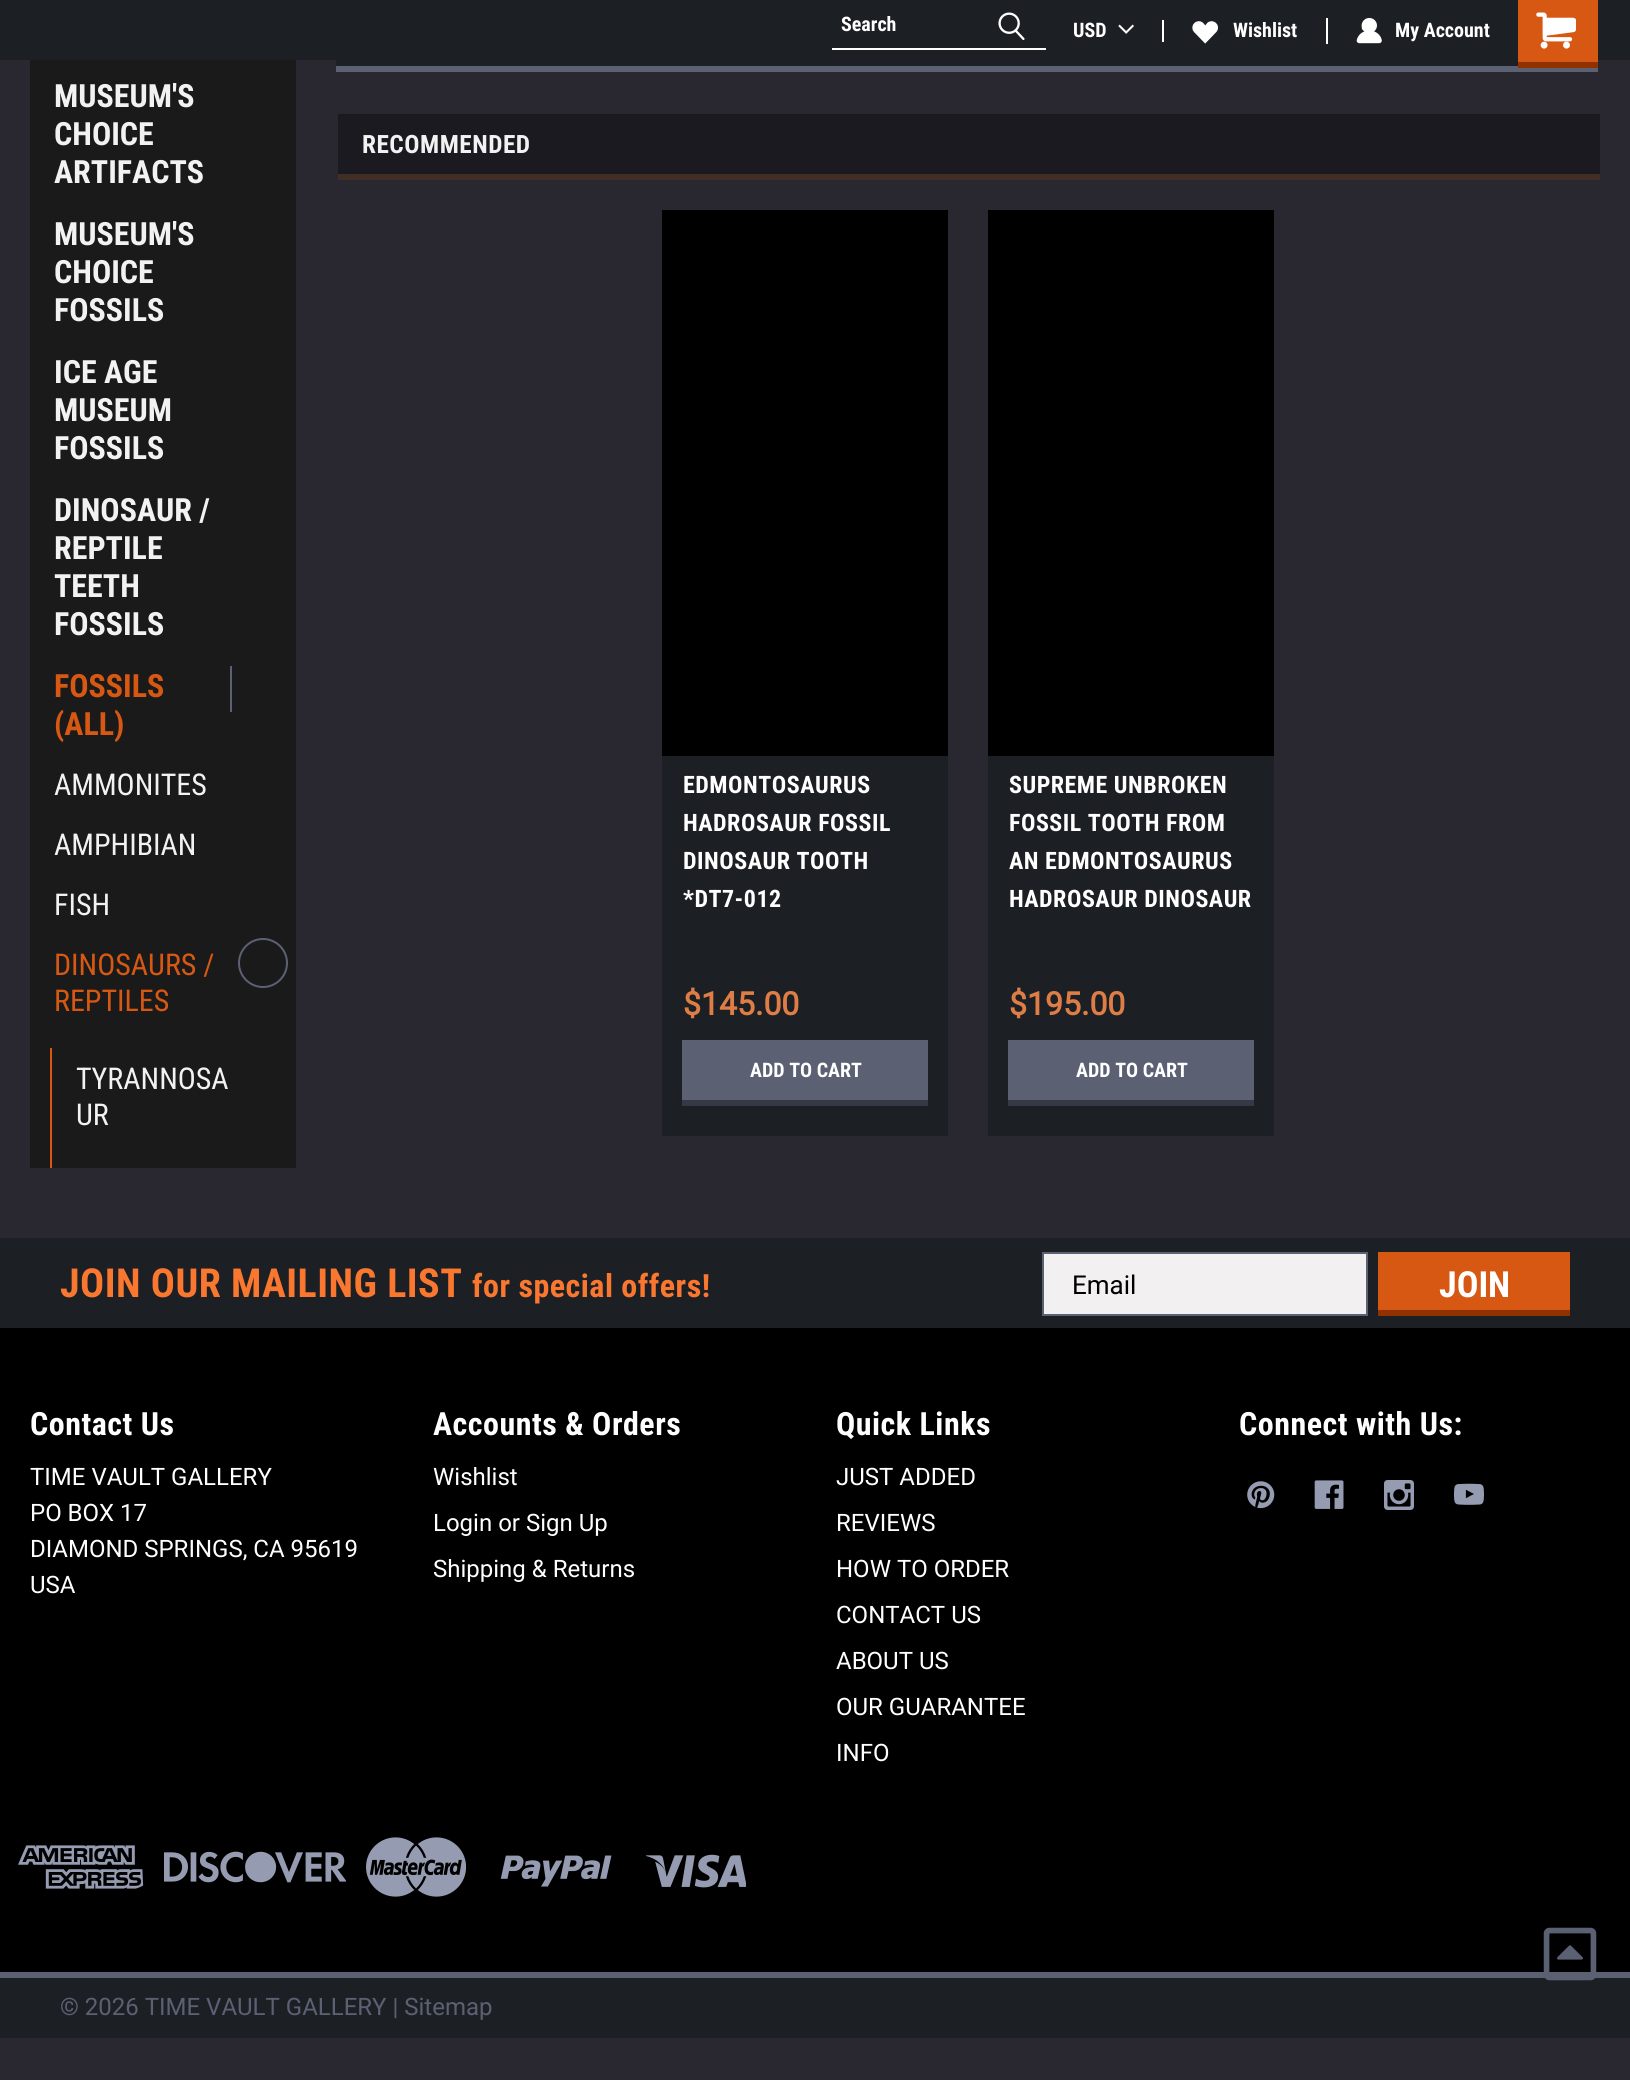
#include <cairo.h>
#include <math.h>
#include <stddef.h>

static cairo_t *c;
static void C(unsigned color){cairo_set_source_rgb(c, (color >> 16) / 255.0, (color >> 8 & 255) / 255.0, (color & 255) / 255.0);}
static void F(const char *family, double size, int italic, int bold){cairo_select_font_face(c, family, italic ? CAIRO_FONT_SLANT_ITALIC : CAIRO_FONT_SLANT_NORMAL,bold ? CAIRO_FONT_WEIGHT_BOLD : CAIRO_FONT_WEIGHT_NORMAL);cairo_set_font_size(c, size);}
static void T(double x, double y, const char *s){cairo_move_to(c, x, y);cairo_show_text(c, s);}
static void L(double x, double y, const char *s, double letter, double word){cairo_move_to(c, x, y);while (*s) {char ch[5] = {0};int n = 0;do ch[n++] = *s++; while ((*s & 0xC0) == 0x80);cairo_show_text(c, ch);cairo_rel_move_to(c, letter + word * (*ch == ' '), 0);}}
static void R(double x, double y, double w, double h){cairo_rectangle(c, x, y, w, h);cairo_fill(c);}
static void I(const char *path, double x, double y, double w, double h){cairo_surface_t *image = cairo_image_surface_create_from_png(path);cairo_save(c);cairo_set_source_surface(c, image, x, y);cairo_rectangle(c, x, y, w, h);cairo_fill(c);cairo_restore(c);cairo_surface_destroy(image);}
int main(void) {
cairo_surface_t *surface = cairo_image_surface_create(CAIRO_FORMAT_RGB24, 1630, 2080);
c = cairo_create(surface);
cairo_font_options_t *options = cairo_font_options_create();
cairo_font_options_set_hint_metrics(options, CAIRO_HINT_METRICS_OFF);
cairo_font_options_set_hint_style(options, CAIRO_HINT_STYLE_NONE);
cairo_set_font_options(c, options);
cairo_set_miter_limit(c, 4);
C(0x292831);
cairo_paint(c);
C(0x1c1f24);
R(0,0,1630,60);
C(0xffffff);
R(832,48,214,2);
F("Roboto Condensed",20,0,1);
T(841,31,"Search");
I("1.png",998,12,27,29);
R(1162,20,2,22);
T(1073,37,"USD");
I("2.png",1118,24,16,10);
R(1326,18,2,26);
I("3.png",1192,21,26,23);
T(1233,37,"Wishlist");
I("4.png",1356,18,26,26);
T(1395,37,"My Account");
C(0xd75813);
R(1518,0,80,62);
C(0x5b6073);
R(336,66,1262,6);
C(0x8f3200);
R(1518,62,80,6);
I("5.png",1536,12,40,37);
C(0x1a1a1a);
R(30,60,266,1108);
F("Roboto Condensed",32,0,1);
C(0xf3f2f2);
T(54,107,"MUSEUM'S");
T(54,145,"CHOICE");
T(54,183,"ARTIFACTS");
T(54,245,"MUSEUM'S");
T(54,283,"CHOICE");
T(54,321,"FOSSILS");
T(54,383,"ICE AGE");
T(54,421,"MUSEUM");
T(54,459,"FOSSILS");
T(54,521,"DINOSAUR /");
T(54,559,"REPTILE");
T(54,597,"TEETH");
T(54,635,"FOSSILS");
C(0xd75813);
T(54,697,"FOSSILS");
T(54,735,"(ALL)");
C(0x5b6073);
R(230,666,2,46);
F("Roboto Condensed",30,0,0);
C(0xf3f2f2);
T(54,795,"AMMONITES");
T(54,855,"AMPHIBIAN");
T(54,915,"FISH");
C(0xd75813);
T(54,975,"DINOSAURS /");
T(54,1011,"REPTILES");
cairo_new_path(c);
cairo_arc(c,263,963,24,0,2 * M_PI);
C(0x5b6073);
cairo_stroke(c);
C(0xd75813);
R(50,1048,2,120);
C(0xf3f2f2);
T(76,1089,"TYRANNOSA");
T(76,1125,"UR");
C(0x1c1f24);
R(336,60,1182,6);
C(0x1b1a20);
R(338,114,1262,60);
C(0x412f25);
R(338,174,1262,6);
F("Roboto Condensed",25.25,0,1);
C(0xf3f2f2);
L(362,153,"RECOMMENDED",.5,0);
C(0x1c1f24);
R(662,756,286,380);
C(0x000000);
R(662,210,286,546);
F("Roboto Condensed",24,0,1);
C(0xffffff);
L(683,793,"EDMONTOSAURUS",.5,0);
L(683,831,"HADROSAUR FOSSIL",.5,0);
L(683,869,"DINOSAUR TOOTH",.5,0);
L(683,907,"*DT7-012",.5,0);
F("Roboto",32,0,1);
C(0xdf7d47);
T(683,1015,"$145.00");
C(0x5b6073);
R(682,1040,246,60);
C(0x363945);
R(682,1100,246,6);
F("Roboto Condensed",20,0,1);
C(0xffffff);
T(750,1077,"ADD TO CART");
C(0x1c1f24);
R(988,756,286,380);
C(0x000000);
R(988,210,286,546);
F("Roboto Condensed",24,0,1);
C(0xffffff);
L(1009,793,"SUPREME UNBROKEN",.5,0);
L(1009,831,"FOSSIL TOOTH FROM",.5,0);
L(1009,869,"AN EDMONTOSAURUS",.5,0);
L(1009,907,"HADROSAUR DINOSAUR",.5,0);
F("Roboto",32,0,1);
C(0xdf7d47);
T(1009,1015,"$195.00");
C(0x5b6073);
R(1008,1040,246,60);
C(0x363945);
R(1008,1100,246,6);
F("Roboto Condensed",20,0,1);
C(0xffffff);
T(1076,1077,"ADD TO CART");
C(0x000000);
R(0,1328,1630,644);
C(0x1c1f24);
R(0,1238,1630,90);
F("Roboto Condensed",40,0,1);
C(0xfa772f);
L(60,1297,"JOIN OUR MAILING LIST",.5,0);
F("Roboto Condensed",32,0,1);
L(472,1297,"for special offers!",.5,0);
C(0xf2f0f0);
cairo_rectangle(c,1043,1253,324,62);
cairo_fill_preserve(c);
C(0x5b6073);
cairo_stroke(c);
F("Roboto",26,0,0);
C(0x000000);
T(1072,1294,"Email");
C(0xd75813);
R(1378,1252,192,58);
C(0x8f3200);
R(1378,1310,192,6);
F("Roboto Condensed",36,0,1);
C(0xffffff);
T(1439,1297,"JOIN");
F("Roboto Condensed",32,0,1);
L(30,1435,"Contact Us",.5,0);
F("Roboto",24,0,0);
T(30,1485,"TIME VAULT GALLERY");
T(30,1521,"PO BOX 17");
T(30,1557,"DIAMOND SPRINGS, CA 95619");
T(30,1593,"USA");
F("Roboto Condensed",32,0,1);
L(433,1435,"Accounts & Orders",.5,0);
F("Roboto",24,0,0);
T(433,1485,"Wishlist");
T(433,1531,"Login or");
T(526,1531,"Sign Up");
T(433,1577,"Shipping & Returns");
F("Roboto Condensed",32,0,1);
L(836,1435,"Quick Links",.5,0);
F("Roboto",24,0,0);
T(836,1485,"JUST ADDED");
T(836,1531,"REVIEWS");
T(836,1577,"HOW TO ORDER");
T(836,1623,"CONTACT US");
T(836,1669,"ABOUT US");
T(836,1715,"OUR GUARANTEE");
T(836,1761,"INFO");
F("Roboto Condensed",32,0,1);
L(1239,1435,"Connect with Us:",.5,0);
I("6.png",1247,1481,28,28);
I("7.png",1314,1480,30,29);
I("8.png",1384,1480,30,30);
I("9.png",1454,1483,30,22);
I("10.png",18,1845,126,44);
I("11.png",164,1851,182,32);
I("12.png",366,1837,100,60);
I("13.png",500,1855,112,32);
I("14.png",646,1854,100,34);
C(0x1c1f24);
R(0,1978,1630,60);
C(0x5b6073);
R(0,1972,1630,6);
I("15.png",1543,1927,54,54);
F("Roboto",24,0,0);
T(60,2015,"© 2026 TIME VAULT GALLERY | Sitemap");
cairo_surface_write_to_png(surface, "o.png");
cairo_font_options_destroy(options);
cairo_destroy(c);
cairo_surface_destroy(surface);
return 0;
}
